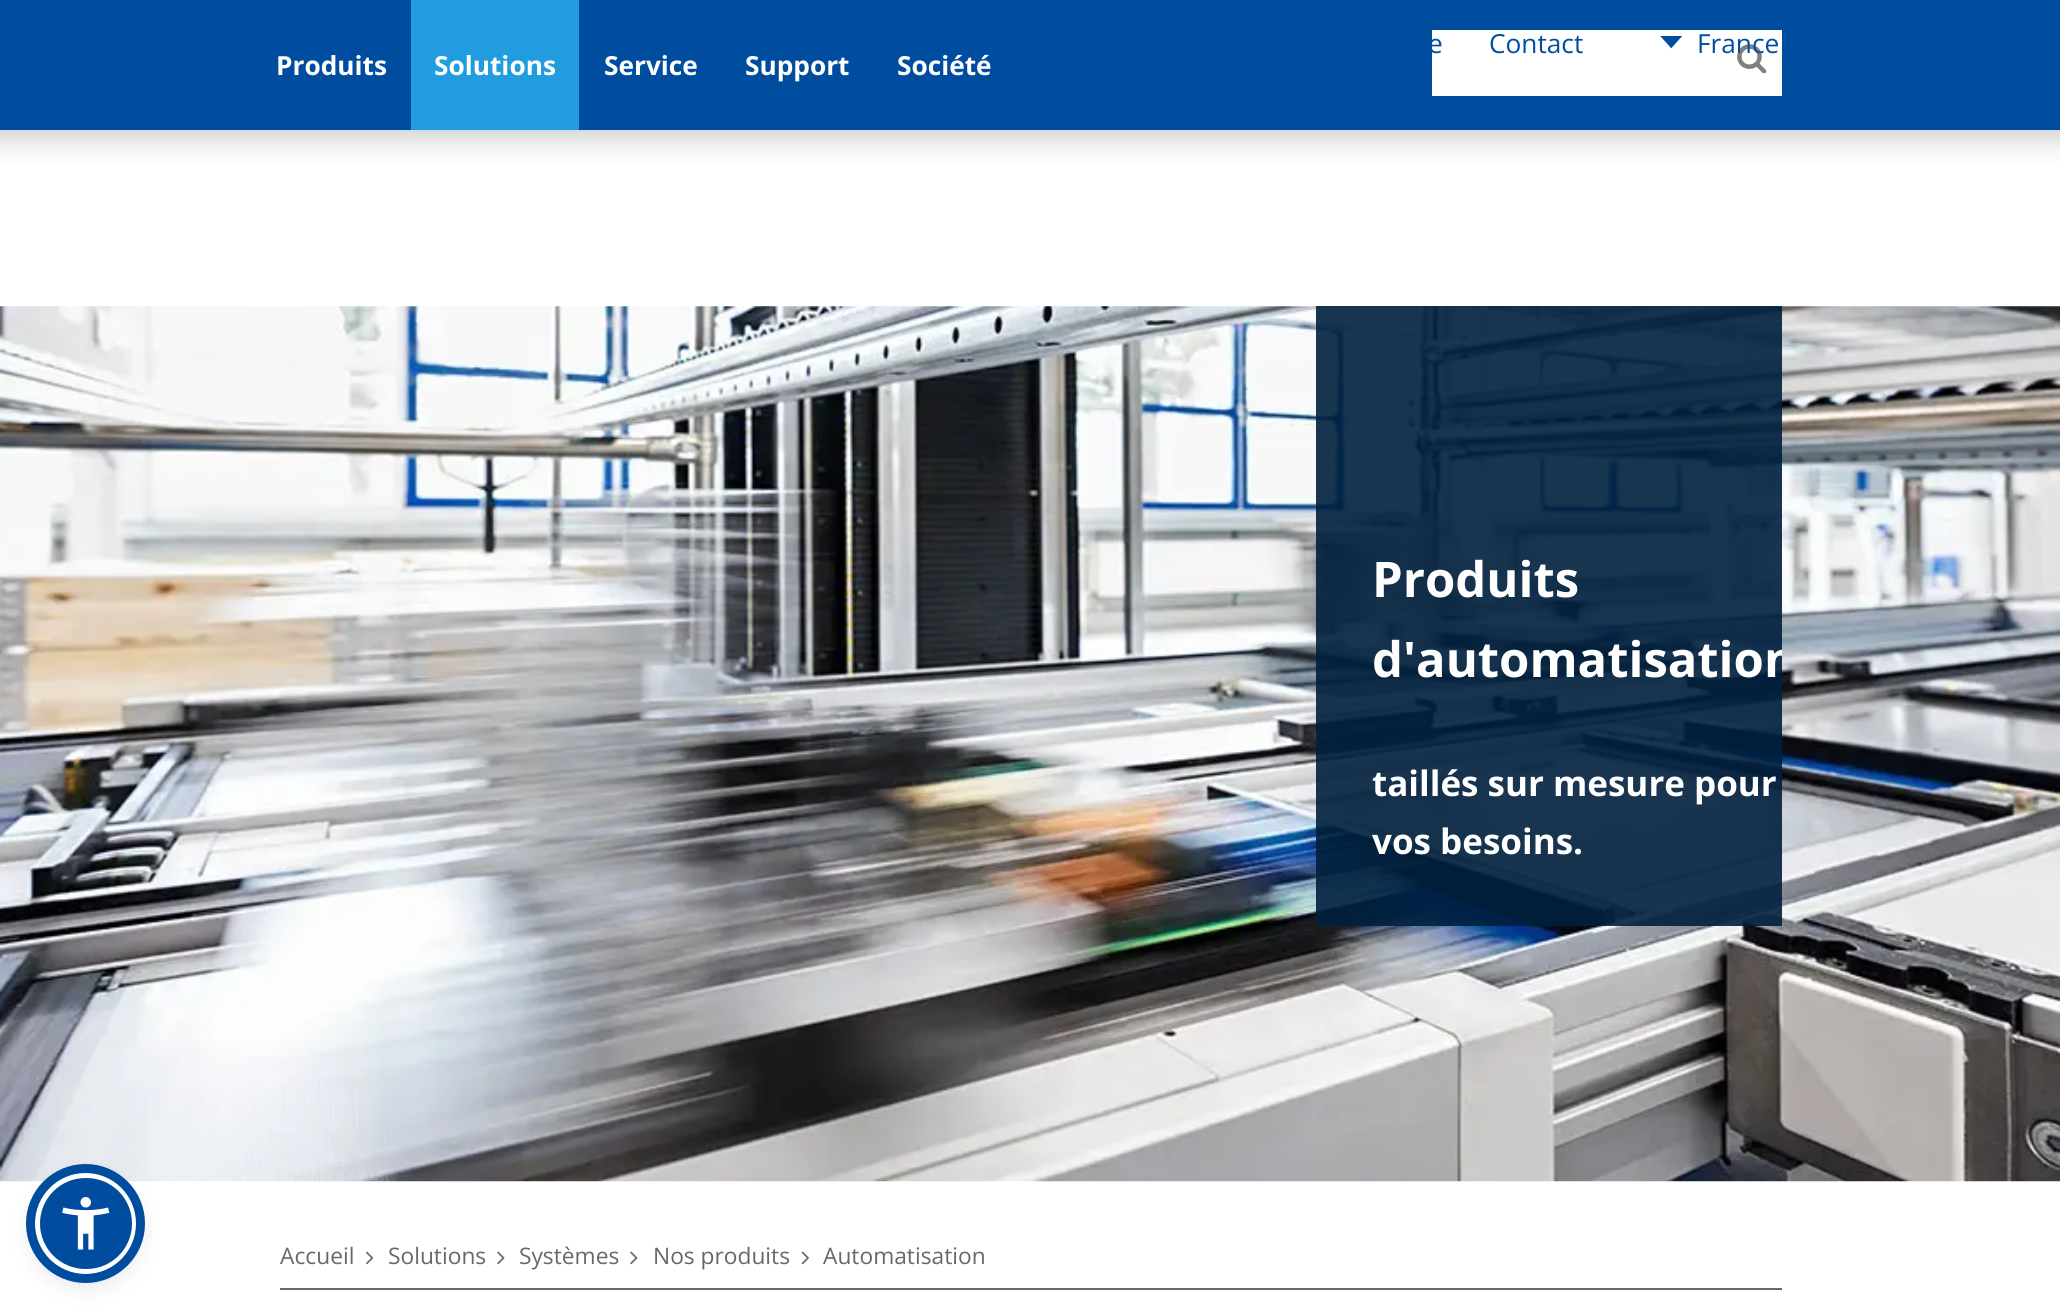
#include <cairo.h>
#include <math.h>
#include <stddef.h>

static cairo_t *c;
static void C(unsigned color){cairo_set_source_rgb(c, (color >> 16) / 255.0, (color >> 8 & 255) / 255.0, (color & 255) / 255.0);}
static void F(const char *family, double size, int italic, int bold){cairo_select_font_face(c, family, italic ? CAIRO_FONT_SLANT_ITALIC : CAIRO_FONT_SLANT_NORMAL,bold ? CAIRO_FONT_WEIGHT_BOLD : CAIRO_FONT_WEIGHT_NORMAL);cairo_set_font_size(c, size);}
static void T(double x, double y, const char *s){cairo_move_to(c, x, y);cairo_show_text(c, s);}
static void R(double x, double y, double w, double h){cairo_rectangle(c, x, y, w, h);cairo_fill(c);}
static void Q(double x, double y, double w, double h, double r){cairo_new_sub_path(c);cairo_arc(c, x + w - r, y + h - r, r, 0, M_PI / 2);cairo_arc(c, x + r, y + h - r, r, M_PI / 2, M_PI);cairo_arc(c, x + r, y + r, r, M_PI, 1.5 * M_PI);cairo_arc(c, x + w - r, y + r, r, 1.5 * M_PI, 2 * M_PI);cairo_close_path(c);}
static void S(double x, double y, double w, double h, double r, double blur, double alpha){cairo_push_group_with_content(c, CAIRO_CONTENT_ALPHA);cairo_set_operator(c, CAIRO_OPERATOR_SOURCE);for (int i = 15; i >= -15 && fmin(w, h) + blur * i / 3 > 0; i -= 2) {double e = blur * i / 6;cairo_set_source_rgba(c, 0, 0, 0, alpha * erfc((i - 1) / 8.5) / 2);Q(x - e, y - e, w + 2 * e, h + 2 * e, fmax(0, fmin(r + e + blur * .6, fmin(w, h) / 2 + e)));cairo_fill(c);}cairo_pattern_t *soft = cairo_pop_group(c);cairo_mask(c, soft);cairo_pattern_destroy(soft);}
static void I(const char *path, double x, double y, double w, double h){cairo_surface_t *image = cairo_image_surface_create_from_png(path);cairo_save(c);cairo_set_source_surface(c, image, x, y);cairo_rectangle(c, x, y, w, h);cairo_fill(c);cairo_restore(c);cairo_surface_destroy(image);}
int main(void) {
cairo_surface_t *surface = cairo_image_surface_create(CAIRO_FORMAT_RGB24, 2060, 1308);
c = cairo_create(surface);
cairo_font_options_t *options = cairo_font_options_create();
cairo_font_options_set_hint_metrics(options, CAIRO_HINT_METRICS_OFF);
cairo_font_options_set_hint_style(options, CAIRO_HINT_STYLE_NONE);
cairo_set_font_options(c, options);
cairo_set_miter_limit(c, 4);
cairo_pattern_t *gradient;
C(0xffffff);
cairo_paint(c);
I("4.png",0,306,2060,876);
C(0x5d6494);
S(35,1176,102,102,51,3.5,.2);
C(0x252c61);
S(35,1181,102,102,51,13,.15);
C(0x004da0);
Q(37.5,1175.5,97,96,48);
cairo_fill_preserve(c);
C(0xffffff);
cairo_set_line_width(c,5);
cairo_stroke(c);
cairo_arc(c,85.5,1223.5,55,0,2 * M_PI);
C(0x004da0);
cairo_set_line_width(c,9);
cairo_stroke(c);
I("1.png",62,1197,48,53);
R(0,0,2060,130);
C(0xffffff);
R(1432,30,350,66);
F("Open Sans",26.25,0,0);
C(0x004da0);
T(1428,53,"e");
T(1489,53,"Contact");
I("2.png",1660,36,23,13);
I("3.png",1737,44,30,30);
T(1697,53,"France");
F("Open Sans",26.25,0,1);
C(0xffffff);
T(276,75,"Produits");
C(0x209cdf);
R(411,0,168,130);
C(0xffffff);
T(434,75,"Solutions");
T(604,75,"Service");
T(745,75,"Support");
T(897,75,"Société");
gradient = cairo_pattern_create_linear(1031,129,1031,165);
cairo_pattern_add_color_stop_rgba(gradient,0,0.851,0.851,0.851,1);
cairo_pattern_add_color_stop_rgba(gradient,.5,0.949,0.949,0.949,1);
cairo_pattern_add_color_stop_rgba(gradient,1,1,1,1,1);
cairo_set_source(c,gradient);
cairo_pattern_destroy(gradient);
R(0,130,2060,32);
cairo_set_source_rgba(c,0,0.125,0.243,0.9);
R(1316,306,466,620);
F("Open Sans",49,0,1);
C(0xffffff);
T(1372,597,"Produits");
cairo_save(c);
cairo_rectangle(c,1316,0,466,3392);
cairo_clip(c);
T(1372,677,"d'automatisation");
cairo_restore(c);
F("Open Sans",35,0,1);
T(1372,796,"taillés sur mesure pour");
T(1372,854,"vos besoins.");
C(0x686868);
R(280,1288,1502,2);
F("Open Sans",22.75,0,0);
T(280,1264,"Accueil");
I("5.png",366,1251,8,14);
T(388,1264,"Solutions");
I("6.png",497,1251,8,14);
T(519,1264,"Systèmes");
I("6.png",630,1251,8,14);
T(653,1264,"Nos produits");
I("7.png",801,1251,8,14);
T(823,1264,"Automatisation");
cairo_surface_write_to_png(surface, "o.png");
cairo_font_options_destroy(options);
cairo_destroy(c);
cairo_surface_destroy(surface);
return 0;
}
